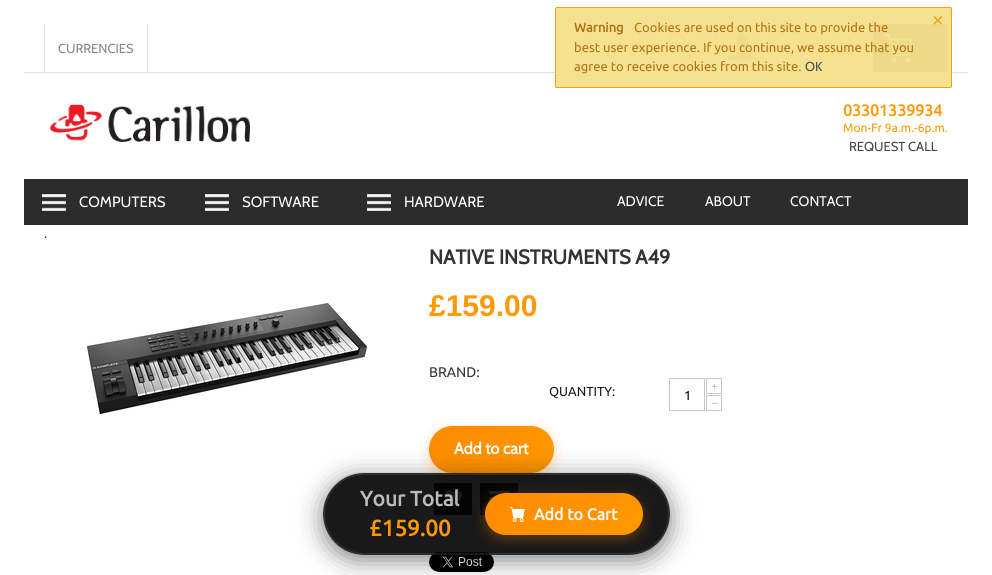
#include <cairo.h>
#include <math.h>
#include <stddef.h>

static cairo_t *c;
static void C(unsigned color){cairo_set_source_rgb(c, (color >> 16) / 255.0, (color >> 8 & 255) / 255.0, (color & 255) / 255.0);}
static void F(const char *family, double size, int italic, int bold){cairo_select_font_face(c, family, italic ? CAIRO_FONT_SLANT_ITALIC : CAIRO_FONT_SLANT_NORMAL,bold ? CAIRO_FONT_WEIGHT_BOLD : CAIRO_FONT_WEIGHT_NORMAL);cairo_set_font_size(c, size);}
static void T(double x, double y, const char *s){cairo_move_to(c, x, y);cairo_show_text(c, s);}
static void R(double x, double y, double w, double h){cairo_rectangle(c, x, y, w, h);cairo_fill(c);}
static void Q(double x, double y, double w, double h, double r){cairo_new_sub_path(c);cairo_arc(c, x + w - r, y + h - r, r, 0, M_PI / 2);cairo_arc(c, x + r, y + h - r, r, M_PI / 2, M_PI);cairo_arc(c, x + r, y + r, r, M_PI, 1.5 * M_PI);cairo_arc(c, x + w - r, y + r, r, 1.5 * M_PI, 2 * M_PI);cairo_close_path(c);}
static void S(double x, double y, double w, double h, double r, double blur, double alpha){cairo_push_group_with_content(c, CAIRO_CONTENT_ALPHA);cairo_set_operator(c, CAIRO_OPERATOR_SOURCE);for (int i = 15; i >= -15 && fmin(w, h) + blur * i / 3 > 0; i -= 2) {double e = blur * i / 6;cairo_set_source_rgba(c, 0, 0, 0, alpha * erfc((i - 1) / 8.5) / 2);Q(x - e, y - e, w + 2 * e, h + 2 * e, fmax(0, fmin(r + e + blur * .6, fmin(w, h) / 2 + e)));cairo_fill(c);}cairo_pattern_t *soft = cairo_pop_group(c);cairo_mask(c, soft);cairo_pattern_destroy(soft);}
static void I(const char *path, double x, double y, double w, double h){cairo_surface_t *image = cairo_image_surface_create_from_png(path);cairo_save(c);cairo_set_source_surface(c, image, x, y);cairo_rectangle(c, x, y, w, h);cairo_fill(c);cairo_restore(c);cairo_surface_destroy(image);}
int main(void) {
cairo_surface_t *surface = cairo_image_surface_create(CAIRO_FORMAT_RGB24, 992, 575);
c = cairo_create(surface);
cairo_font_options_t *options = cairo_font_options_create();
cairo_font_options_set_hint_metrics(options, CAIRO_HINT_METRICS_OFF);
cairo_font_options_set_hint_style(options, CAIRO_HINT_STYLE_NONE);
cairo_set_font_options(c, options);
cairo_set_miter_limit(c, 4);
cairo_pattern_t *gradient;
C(0xffffff);
cairo_paint(c);
C(0xe1e1e1);
R(24,72,944,1);
R(651,24,1,48);
I("1.png",666,34,28,28);
R(708,24,1,48);
I("2.png",728,34,28,27);
C(0x888888);
cairo_new_path(c);
cairo_move_to(c,850,57.5);
cairo_line_to(c,846,53);
cairo_line_to(c,854.5,53);
cairo_close_path(c);
cairo_fill(c);
C(0x2c2c2c);
R(873,24,75,48);
I("3.png",884,34,29,28);
cairo_set_source_rgba(c,0.961,0.878,0.549,0.96);
Q(555,7,397,81,2);
cairo_fill(c);
Q(555.5,7.5,396,80,1.5);
cairo_set_source_rgba(c,0.953,0.612,0.071,0.96);
cairo_set_line_width(c,1);
cairo_stroke(c);
F("Liberation Sans",20,0,0);
C(0xf39f17);
T(932,27,"×");
F("Ubuntu",13,0,1);
C(0xaf7415);
T(574,32,"Warning");
F("Ubuntu",13,0,0);
T(634,32,"Cookies are used on this site to provide the");
T(574,52,"best user experience. If you continue, we assume that you");
T(574,71,"agree to receive cookies from this site.");
F("Cabin",13,0,0);
C(0x4c4c4c);
T(805,71,"OK");
C(0xe1e1e1);
R(147,24,1,48);
R(44,24,1,48);
C(0x888888);
T(58,53,"CURRENCIES");
I("4.png",50,104,201,39);
F("Ubuntu",16,0,1);
C(0xff9900);
T(843,116,"03301339934");
F("Ubuntu",12,0,0);
T(843,132,"Mon-Fr 9a.m.-6p.m.");
F("Cabin",13,0,0);
C(0x454545);
T(849,151,"REQUEST CALL");
C(0x2c2c2c);
R(24,179,944,46);
I("5.png",42,194,24,17);
F("Cabin",15,0,0);
C(0xffffff);
T(79,207,"COMPUTERS");
I("5.png",205,194,24,17);
T(242,207,"SOFTWARE");
I("5.png",367,194,24,17);
T(404,207,"HARDWARE");
F("Cabin",14,0,0);
T(617,206,"ADVICE");
T(705,206,"ABOUT");
T(790,206,"CONTACT");
F("Ubuntu",13,0,0);
C(0x333333);
T(44,238,".");
I("6.png",87,303,280,111);
F("Cabin",20,0,1);
T(429,264,"NATIVE INSTRUMENTS A49");
F("Liberation Sans",30,0,1);
C(0xff9900);
T(429,316,"£159.00");
F("Ubuntu",14,0,0);
C(0x333333);
T(429,377,"BRAND:");
F("Ubuntu",13,0,0);
C(0x1a1a1a);
T(549,396,"QUANTITY:");
cairo_rectangle(c,706.5,378.5,15,15);
C(0xc8c8c8);
cairo_stroke(c);
F("Cabin",16,0,0);
T(711,391,"+");
cairo_rectangle(c,669.5,378.5,35,32);
cairo_stroke(c);
F("Ubuntu",13,0,0);
C(0x000000);
T(684,400,"1");
cairo_rectangle(c,706.5,395.5,15,15);
C(0xc8c8c8);
cairo_stroke(c);
F("Cabin",16,0,0);
T(711,408,"−");
C(0xff8a00);
S(429,430,125,47,23.5,6,.3);
gradient = cairo_pattern_create_linear(449,407,535,493);
cairo_pattern_add_color_stop_rgba(gradient,0,1,0.541,0,1);
cairo_pattern_add_color_stop_rgba(gradient,1,1,0.6,0,1);
cairo_set_source(c,gradient);
cairo_pattern_destroy(gradient);
Q(429,426,125,47,23.5);
cairo_fill(c);
F("Cabin",16,0,1);
C(0xffffff);
T(454,454,"Add to cart");
C(0x2c2c2c);
R(434,483,38,32);
I("7.png",444,490,18,17);
R(480,483,38,32);
I("8.png",489,491,21,9);
I("9.png",429,552,65,20);
cairo_save(c);
cairo_set_fill_rule(c,CAIRO_FILL_RULE_EVEN_ODD);
cairo_new_path(c);
cairo_move_to(c,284,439);
cairo_line_to(c,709,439);
cairo_line_to(c,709,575);
cairo_line_to(c,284,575);
cairo_close_path(c);
cairo_move_to(c,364,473);
cairo_line_to(c,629,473);
cairo_curve_to(c,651.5,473,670,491.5,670,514);
cairo_curve_to(c,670,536.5,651.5,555,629,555);
cairo_line_to(c,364,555);
cairo_curve_to(c,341.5,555,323,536.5,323,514);
cairo_curve_to(c,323,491.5,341.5,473,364,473);
cairo_close_path(c);
cairo_clip(c);
C(0x000000);
S(323,478,347,82,41,12.5,.5);
cairo_restore(c);
cairo_set_source_rgba(c,0,0,0,0.9);
Q(323,473,347,82,41);
cairo_fill(c);
Q(324,474,345,80,40);
cairo_set_source_rgba(c,1,1,1,0.1);
cairo_set_line_width(c,2);
cairo_stroke(c);
F("Ubuntu",21,0,1);
C(0xbbbbbb);
T(360,506,"Your Total");
F("Ubuntu",22.5,0,1);
C(0xff9900);
T(369,536,"£159.00");
C(0xff8a00);
S(485,497,158,42,21,6,.3);
gradient = cairo_pattern_create_linear(514,464,614,564);
cairo_pattern_add_color_stop_rgba(gradient,0,1,0.541,0,1);
cairo_pattern_add_color_stop_rgba(gradient,1,1,0.6,0,1);
cairo_set_source(c,gradient);
cairo_pattern_destroy(gradient);
Q(485,493,158,42,21);
cairo_fill(c);
I("10.png",510,507,15,15);
F("Ubuntu",16,0,1);
C(0xffffff);
T(534,520,"Add to Cart");
cairo_surface_write_to_png(surface, "o.png");
cairo_font_options_destroy(options);
cairo_destroy(c);
cairo_surface_destroy(surface);
return 0;
}
